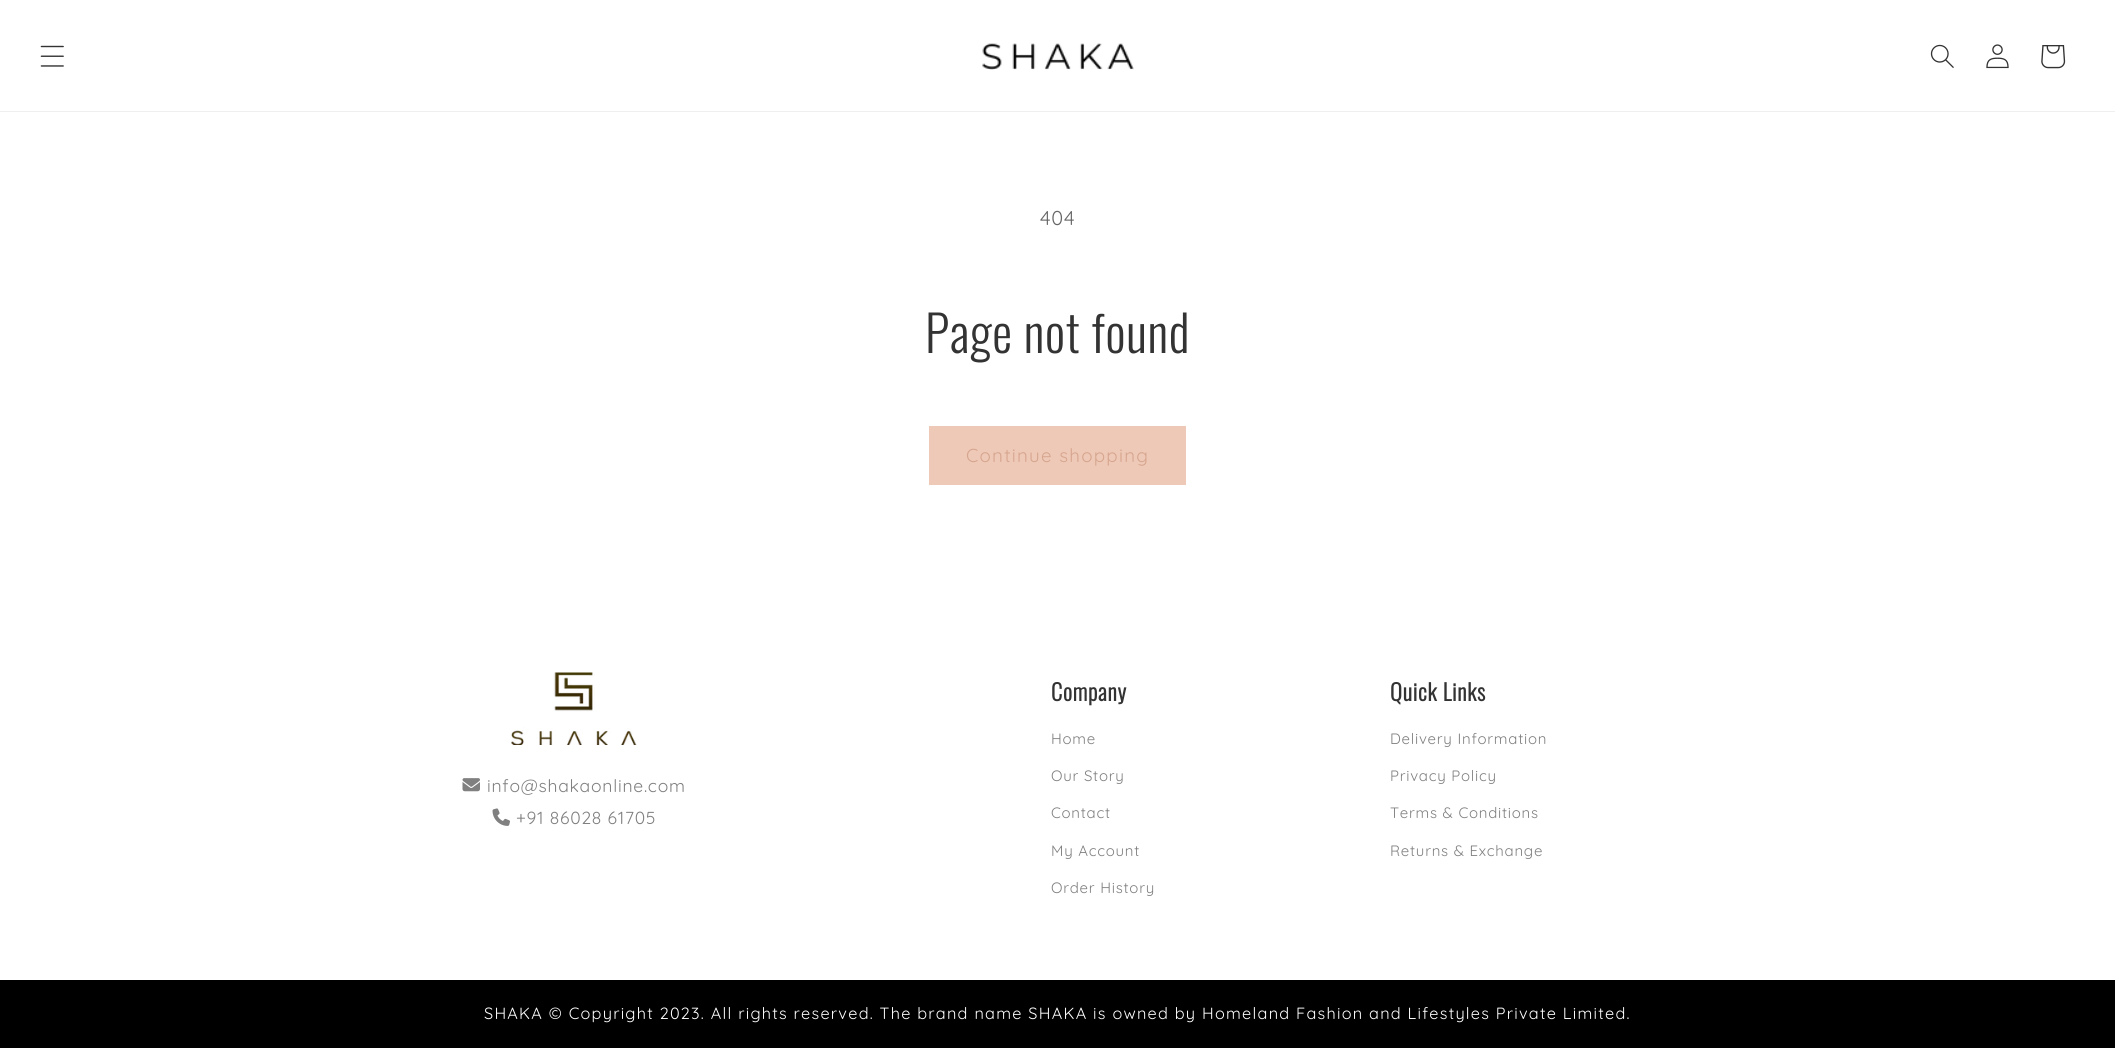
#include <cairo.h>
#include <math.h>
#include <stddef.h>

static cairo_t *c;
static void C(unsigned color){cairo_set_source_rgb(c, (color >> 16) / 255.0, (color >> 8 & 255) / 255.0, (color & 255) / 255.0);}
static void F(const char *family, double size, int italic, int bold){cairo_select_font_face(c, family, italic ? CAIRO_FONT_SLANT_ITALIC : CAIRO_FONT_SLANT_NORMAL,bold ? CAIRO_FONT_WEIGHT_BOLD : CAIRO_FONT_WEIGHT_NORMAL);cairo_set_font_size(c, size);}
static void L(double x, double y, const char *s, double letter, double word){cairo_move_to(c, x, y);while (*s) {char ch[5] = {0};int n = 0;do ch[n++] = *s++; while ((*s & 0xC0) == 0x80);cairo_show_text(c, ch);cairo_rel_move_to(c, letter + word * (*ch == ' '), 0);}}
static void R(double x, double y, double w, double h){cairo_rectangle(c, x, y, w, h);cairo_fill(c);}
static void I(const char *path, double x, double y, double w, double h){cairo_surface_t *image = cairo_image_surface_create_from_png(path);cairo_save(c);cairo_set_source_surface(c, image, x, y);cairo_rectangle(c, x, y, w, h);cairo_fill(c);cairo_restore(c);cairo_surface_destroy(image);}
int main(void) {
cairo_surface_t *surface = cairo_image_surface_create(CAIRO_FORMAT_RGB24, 2115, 1055);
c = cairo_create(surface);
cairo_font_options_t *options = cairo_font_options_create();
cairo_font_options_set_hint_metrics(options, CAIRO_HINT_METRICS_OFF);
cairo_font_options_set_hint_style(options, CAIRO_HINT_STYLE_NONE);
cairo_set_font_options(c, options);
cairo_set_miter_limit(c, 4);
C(0xffffff);
cairo_paint(c);
C(0xefefef);
R(0,111,2115,1);
I("1.png",40,45,24,22);
I("2.png",982,43,152,27);
I("3.png",1930,44,24,24);
I("4.png",1986,44,23,25);
I("5.png",2041,45,25,24);
F("Quicksand",20,0,0);
C(0x666666);
L(1040,225,"404",.75,0);
F("Oswald Light",50,0,0);
C(0x333333);
L(925,353,"Page not found",.75,0);
C(0xeec9b7);
R(929,426,257,59);
F("Quicksand",18.75,0,0);
C(0xd6a58e);
L(966,462,"Continue shopping",1.25,0);
I("6.png",511,672,126,73);
I("7.png",462,778,18,14);
F("Quicksand",17.5,0,0);
C(0x808080);
L(487,792,"info@shakaonline.com",.75,0);
I("8.png",492,808,18,18);
L(516,824,"+91 86028 61705",.75,0);
F("Oswald",22.5,0,1);
C(0x333333);
L(1051,701,"Company",.75,0);
F("Quicksand",15,0,0);
C(0x808080);
L(1051,744,"Home",.75,0);
L(1051,781,"Our Story",.75,0);
L(1051,818,"Contact",.75,0);
L(1051,856,"My Account",.75,0);
L(1051,893,"Order History",.75,0);
F("Oswald",22.5,0,1);
C(0x333333);
L(1390,701,"Quick Links",.75,0);
F("Quicksand",15,0,0);
C(0x808080);
L(1390,744,"Delivery Information",.75,0);
L(1390,781,"Privacy Policy",.75,0);
L(1390,818,"Terms & Conditions",.75,0);
L(1390,856,"Returns & Exchange",.75,0);
C(0x000000);
R(0,980,2115,68);
F("Quicksand",16.25,0,0);
C(0xffffff);
L(484,1019,"SHAKA © Copyright 2023. All rights reserved. The brand name SHAKA is owned by Homeland Fashion and Lifestyles Private Limited.",1.25,0);
cairo_surface_write_to_png(surface, "o.png");
cairo_font_options_destroy(options);
cairo_destroy(c);
cairo_surface_destroy(surface);
return 0;
}
